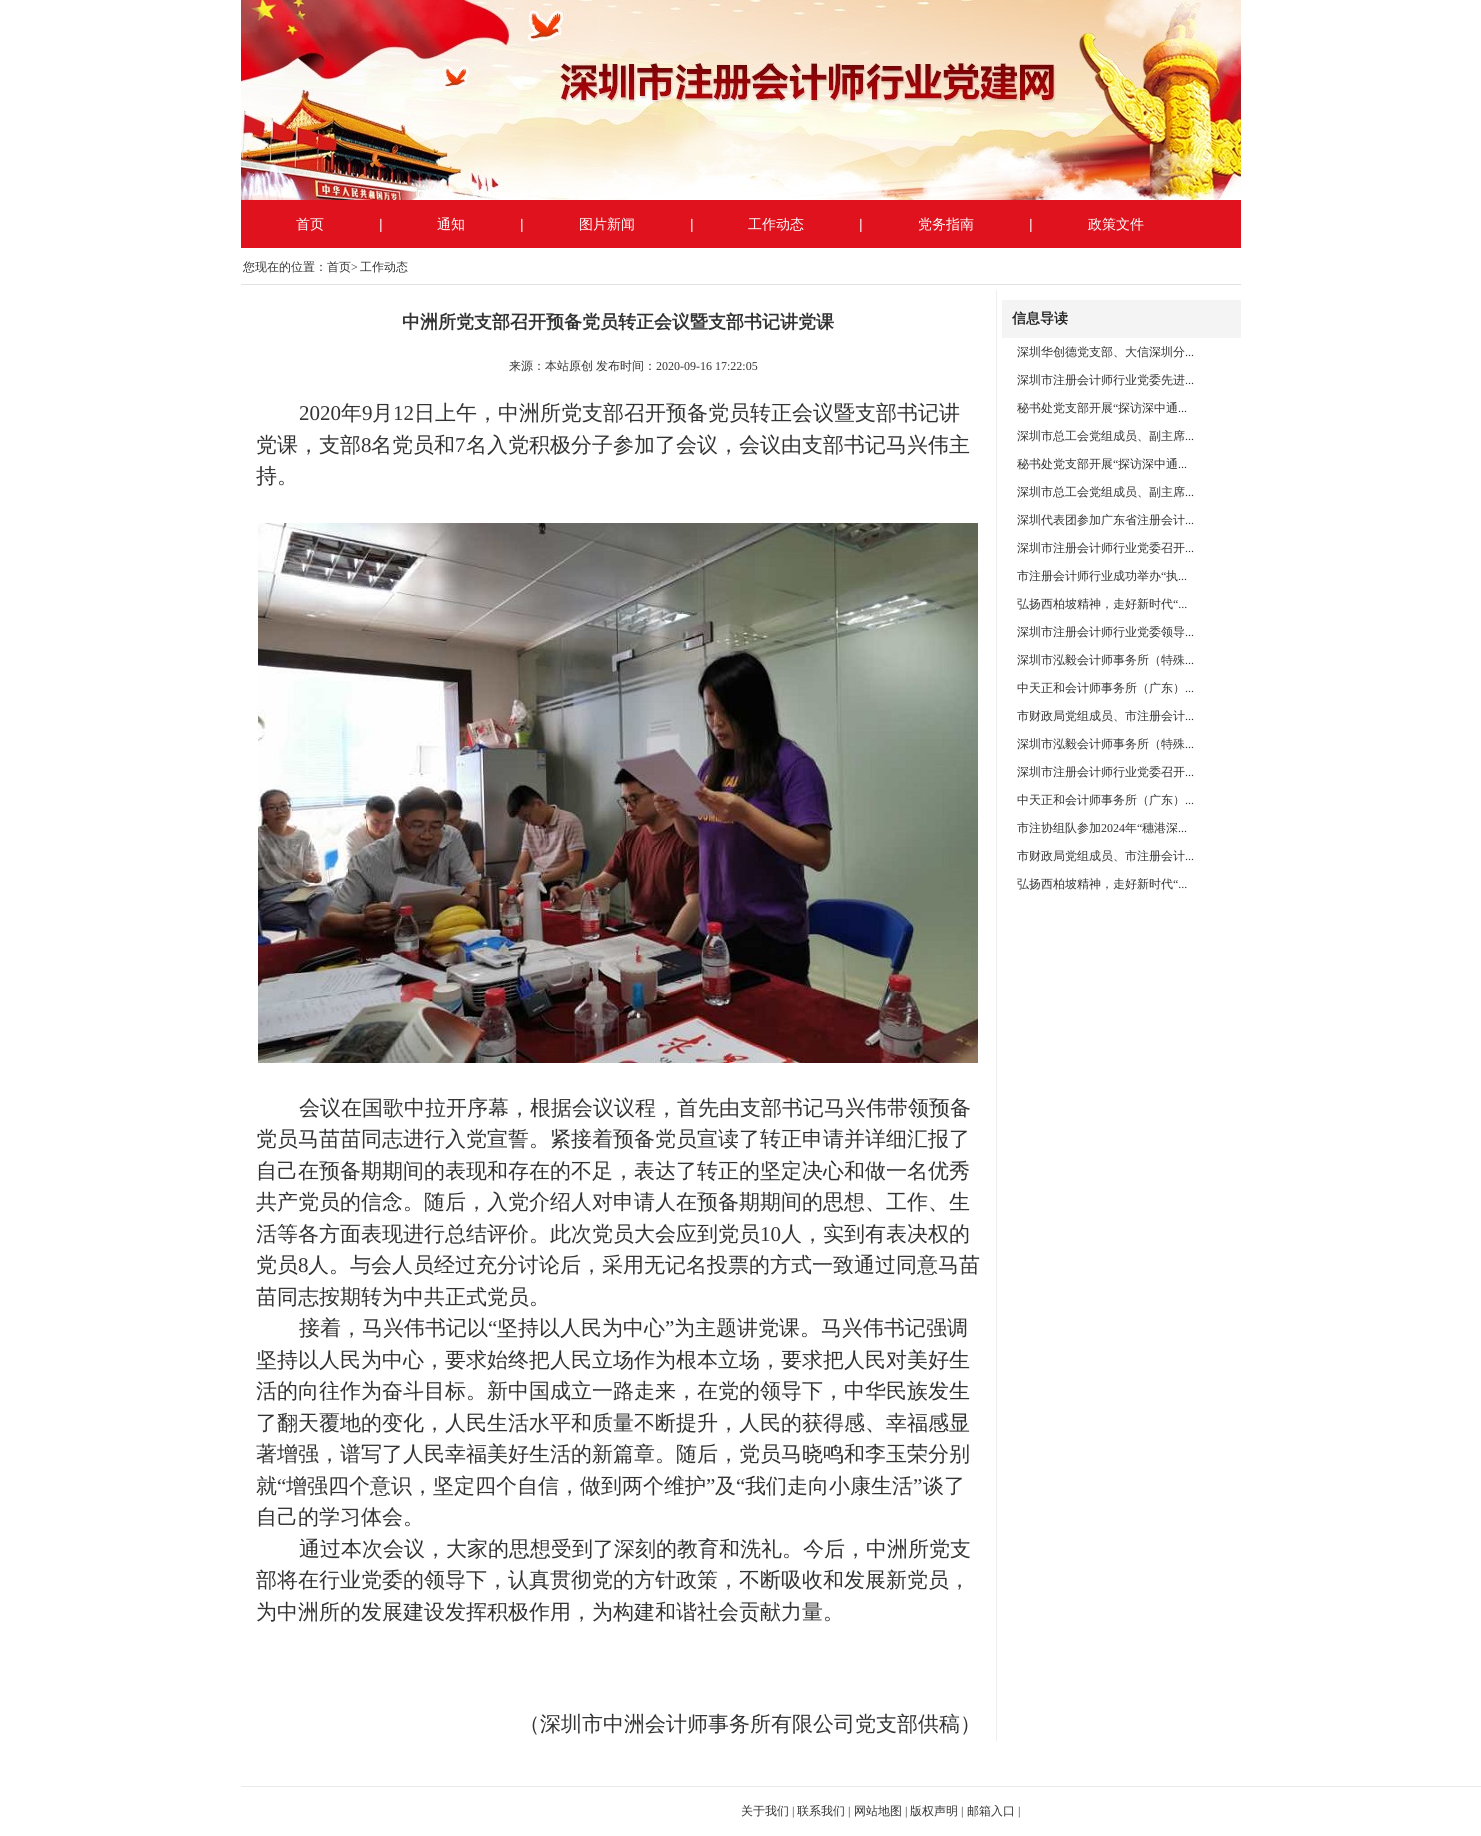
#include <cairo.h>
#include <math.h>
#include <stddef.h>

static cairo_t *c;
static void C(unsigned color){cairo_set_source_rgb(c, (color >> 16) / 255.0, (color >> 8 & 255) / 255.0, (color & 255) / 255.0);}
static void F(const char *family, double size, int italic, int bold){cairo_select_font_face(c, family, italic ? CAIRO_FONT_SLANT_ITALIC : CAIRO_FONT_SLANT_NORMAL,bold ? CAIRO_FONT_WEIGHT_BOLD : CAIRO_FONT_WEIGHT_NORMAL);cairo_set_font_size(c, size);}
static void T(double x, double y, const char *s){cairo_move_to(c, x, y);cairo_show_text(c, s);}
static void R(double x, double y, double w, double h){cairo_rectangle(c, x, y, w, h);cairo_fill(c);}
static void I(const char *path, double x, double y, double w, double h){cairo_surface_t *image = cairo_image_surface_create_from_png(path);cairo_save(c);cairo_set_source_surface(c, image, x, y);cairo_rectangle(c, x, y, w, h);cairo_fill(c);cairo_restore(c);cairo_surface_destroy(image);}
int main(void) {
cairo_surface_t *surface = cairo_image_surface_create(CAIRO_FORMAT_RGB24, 1481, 1836);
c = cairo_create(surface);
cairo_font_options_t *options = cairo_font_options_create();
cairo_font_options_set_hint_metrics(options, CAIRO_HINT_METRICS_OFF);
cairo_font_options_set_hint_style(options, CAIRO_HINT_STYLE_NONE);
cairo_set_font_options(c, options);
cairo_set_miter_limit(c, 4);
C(0xffffff);
cairo_paint(c);
I("1.png",241,0,1000,200);
C(0xe0121e);
R(241,200,1000,48);
F("WenQuanYi Zen Hei Medium",14,0,0);
C(0xffffff);
T(296,229,"首页");
F("Liberation Sans",14,0,0);
T(379,229,"|");
F("WenQuanYi Zen Hei Medium",14,0,0);
T(437,229,"通知");
F("Liberation Sans",14,0,0);
T(520,229,"|");
F("WenQuanYi Zen Hei Medium",14,0,0);
T(579,229,"图片新闻");
F("Liberation Sans",14,0,0);
T(690,229,"|");
F("WenQuanYi Zen Hei Medium",14,0,0);
T(748,229,"工作动态");
F("Liberation Sans",14,0,0);
T(859,229,"|");
F("WenQuanYi Zen Hei Medium",14,0,0);
T(918,229,"党务指南");
F("Liberation Sans",14,0,0);
T(1029,229,"|");
F("WenQuanYi Zen Hei Medium",14,0,0);
T(1088,229,"政策文件");
C(0xe2e2e2);
R(241,284,1000,1);
F("WenQuanYi Zen Hei Medium",12,0,0);
C(0x333333);
T(243,271,"您现在的位置：首页");
F("Liberation Serif",12,0,0);
T(351,271,">");
F("WenQuanYi Zen Hei Medium",12,0,0);
T(360,271,"工作动态");
C(0xeeeeee);
R(996,290,1,1451);
F("WenQuanYi Zen Hei",18,0,1);
C(0x333333);
T(402,328,"中洲所党支部召开预备党员转正会议暨支部书记讲党课");
F("WenQuanYi Zen Hei Medium",12,0,0);
T(509,370,"来源：本站原创");
T(596,370,"发布时间：");
F("Liberation Serif",12,0,0);
T(656,370,"2020-09-16 17:22:05");
F("Liberation Serif",21,0,0);
T(299,420,"2020");
F("WenQuanYi Zen Hei Medium",21,0,0);
T(341,420,"年");
F("Liberation Serif",21,0,0);
T(362,420,"9");
F("WenQuanYi Zen Hei Medium",21,0,0);
T(372,420,"月");
F("Liberation Serif",21,0,0);
T(393,420,"12");
F("WenQuanYi Zen Hei Medium",21,0,0);
T(414,420,"日上午，中洲所党支部召开预备党员转正会议暨支部书记讲");
T(256,452,"党课，支部");
F("Liberation Serif",21,0,0);
T(361,452,"8");
F("WenQuanYi Zen Hei Medium",21,0,0);
T(371,452,"名党员和");
F("Liberation Serif",21,0,0);
T(455,452,"7");
F("WenQuanYi Zen Hei Medium",21,0,0);
T(466,452,"名入党积极分子参加了会议，会议由支部书记马兴伟主");
T(256,483,"持。");
I("2.png",258,523,720,540);
T(299,1115,"会议在国歌中拉开序幕，根据会议议程，首先由支部书记马兴伟带领预备");
T(256,1146,"党员马苗苗同志进行入党宣誓。紧接着预备党员宣读了转正申请并详细汇报了");
T(256,1178,"自己在预备期期间的表现和存在的不足，表达了转正的坚定决心和做一名优秀");
T(256,1209,"共产党员的信念。随后，入党介绍人对申请人在预备期期间的思想、工作、生");
T(256,1241,"活等各方面表现进行总结评价。此次党员大会应到党员");
F("Liberation Serif",21,0,0);
T(760,1241,"10");
F("WenQuanYi Zen Hei Medium",21,0,0);
T(781,1241,"人，实到有表决权的");
T(256,1272,"党员");
F("Liberation Serif",21,0,0);
T(298,1272,"8");
F("WenQuanYi Zen Hei Medium",21,0,0);
T(308,1272,"人。与会人员经过充分讨论后，采用无记名投票的方式一致通过同意马苗");
T(256,1304,"苗同志按期转为中共正式党员。");
T(299,1335,"接着，马兴伟书记以");
F("Liberation Serif",21,0,0);
T(488,1335,"“");
F("WenQuanYi Zen Hei Medium",21,0,0);
T(497,1335,"坚持以人民为中心");
F("Liberation Serif",21,0,0);
T(665,1335,"”");
F("WenQuanYi Zen Hei Medium",21,0,0);
T(674,1335,"为主题讲党课。马兴伟书记强调");
T(256,1367,"坚持以人民为中心，要求始终把人民立场作为根本立场，要求把人民对美好生");
T(256,1398,"活的向往作为奋斗目标。新中国成立一路走来，在党的领导下，中华民族发生");
T(256,1430,"了翻天覆地的变化，人民生活水平和质量不断提升，人民的获得感、幸福感显");
T(256,1461,"著增强，谱写了人民幸福美好生活的新篇章。随后，党员马晓鸣和李玉荣分别");
T(256,1493,"就");
F("Liberation Serif",21,0,0);
T(277,1493,"“");
F("WenQuanYi Zen Hei Medium",21,0,0);
T(286,1493,"增强四个意识，坚定四个自信，做到两个维护");
F("Liberation Serif",21,0,0);
T(706,1493,"”");
F("WenQuanYi Zen Hei Medium",21,0,0);
T(715,1493,"及");
F("Liberation Serif",21,0,0);
T(736,1493,"“");
F("WenQuanYi Zen Hei Medium",21,0,0);
T(745,1493,"我们走向小康生活");
F("Liberation Serif",21,0,0);
T(913,1493,"”");
F("WenQuanYi Zen Hei Medium",21,0,0);
T(923,1493,"谈了");
T(256,1524,"自己的学习体会。");
T(299,1556,"通过本次会议，大家的思想受到了深刻的教育和洗礼。今后，中洲所党支");
T(256,1587,"部将在行业党委的领导下，认真贯彻党的方针政策，不断吸收和发展新党员，");
T(256,1619,"为中洲所的发展建设发挥积极作用，为构建和谐社会贡献力量。");
T(519,1731,"（深圳市中洲会计师事务所有限公司党支部供稿）");
C(0xf4f4f4);
R(1002,300,239,38);
F("WenQuanYi Zen Hei",14,0,1);
C(0x242424);
T(1012,323,"信息导读");
F("WenQuanYi Zen Hei Medium",12,0,0);
C(0x333333);
T(1017,356,"深圳华创德党支部、大信深圳分");
F("Liberation Serif",12,0,0);
T(1185,356,"...");
F("WenQuanYi Zen Hei Medium",12,0,0);
T(1017,384,"深圳市注册会计师行业党委先进");
F("Liberation Serif",12,0,0);
T(1185,384,"...");
F("WenQuanYi Zen Hei Medium",12,0,0);
T(1017,412,"秘书处党支部开展");
F("Liberation Serif",12,0,0);
T(1113,412,"“");
F("WenQuanYi Zen Hei Medium",12,0,0);
T(1118,412,"探访深中通");
F("Liberation Serif",12,0,0);
T(1178,412,"...");
F("WenQuanYi Zen Hei Medium",12,0,0);
T(1017,440,"深圳市总工会党组成员、副主席");
F("Liberation Serif",12,0,0);
T(1185,440,"...");
F("WenQuanYi Zen Hei Medium",12,0,0);
T(1017,468,"秘书处党支部开展");
F("Liberation Serif",12,0,0);
T(1113,468,"“");
F("WenQuanYi Zen Hei Medium",12,0,0);
T(1118,468,"探访深中通");
F("Liberation Serif",12,0,0);
T(1178,468,"...");
F("WenQuanYi Zen Hei Medium",12,0,0);
T(1017,496,"深圳市总工会党组成员、副主席");
F("Liberation Serif",12,0,0);
T(1185,496,"...");
F("WenQuanYi Zen Hei Medium",12,0,0);
T(1017,524,"深圳代表团参加广东省注册会计");
F("Liberation Serif",12,0,0);
T(1185,524,"...");
F("WenQuanYi Zen Hei Medium",12,0,0);
T(1017,552,"深圳市注册会计师行业党委召开");
F("Liberation Serif",12,0,0);
T(1185,552,"...");
F("WenQuanYi Zen Hei Medium",12,0,0);
T(1017,580,"市注册会计师行业成功举办");
F("Liberation Serif",12,0,0);
T(1161,580,"“");
F("WenQuanYi Zen Hei Medium",12,0,0);
T(1166,580,"执");
F("Liberation Serif",12,0,0);
T(1178,580,"...");
F("WenQuanYi Zen Hei Medium",12,0,0);
T(1017,608,"弘扬西柏坡精神，走好新时代");
F("Liberation Serif",12,0,0);
T(1173,608,"“...");
F("WenQuanYi Zen Hei Medium",12,0,0);
T(1017,636,"深圳市注册会计师行业党委领导");
F("Liberation Serif",12,0,0);
T(1185,636,"...");
F("WenQuanYi Zen Hei Medium",12,0,0);
T(1017,664,"深圳市泓毅会计师事务所（特殊");
F("Liberation Serif",12,0,0);
T(1185,664,"...");
F("WenQuanYi Zen Hei Medium",12,0,0);
T(1017,692,"中天正和会计师事务所（广东）");
F("Liberation Serif",12,0,0);
T(1185,692,"...");
F("WenQuanYi Zen Hei Medium",12,0,0);
T(1017,720,"市财政局党组成员、市注册会计");
F("Liberation Serif",12,0,0);
T(1185,720,"...");
F("WenQuanYi Zen Hei Medium",12,0,0);
T(1017,748,"深圳市泓毅会计师事务所（特殊");
F("Liberation Serif",12,0,0);
T(1185,748,"...");
F("WenQuanYi Zen Hei Medium",12,0,0);
T(1017,776,"深圳市注册会计师行业党委召开");
F("Liberation Serif",12,0,0);
T(1185,776,"...");
F("WenQuanYi Zen Hei Medium",12,0,0);
T(1017,804,"中天正和会计师事务所（广东）");
F("Liberation Serif",12,0,0);
T(1185,804,"...");
F("WenQuanYi Zen Hei Medium",12,0,0);
T(1017,832,"市注协组队参加");
F("Liberation Serif",12,0,0);
T(1101,832,"2024");
F("WenQuanYi Zen Hei Medium",12,0,0);
T(1125,832,"年");
F("Liberation Serif",12,0,0);
T(1137,832,"“");
F("WenQuanYi Zen Hei Medium",12,0,0);
T(1142,832,"穗港深");
F("Liberation Serif",12,0,0);
T(1178,832,"...");
F("WenQuanYi Zen Hei Medium",12,0,0);
T(1017,860,"市财政局党组成员、市注册会计");
F("Liberation Serif",12,0,0);
T(1185,860,"...");
F("WenQuanYi Zen Hei Medium",12,0,0);
T(1017,888,"弘扬西柏坡精神，走好新时代");
F("Liberation Serif",12,0,0);
T(1173,888,"“...");
C(0xebe9e9);
R(241,1786,1240,1);
F("WenQuanYi Zen Hei Medium",12,0,0);
C(0x333333);
T(741,1815,"关于我们");
F("Liberation Serif",12,0,0);
T(792,1815,"|");
F("WenQuanYi Zen Hei Medium",12,0,0);
T(797,1815,"联系我们");
F("Liberation Serif",12,0,0);
T(848,1815,"|");
F("WenQuanYi Zen Hei Medium",12,0,0);
T(854,1815,"网站地图");
F("Liberation Serif",12,0,0);
T(905,1815,"|");
F("WenQuanYi Zen Hei Medium",12,0,0);
T(910,1815,"版权声明");
F("Liberation Serif",12,0,0);
T(961,1815,"|");
F("WenQuanYi Zen Hei Medium",12,0,0);
T(967,1815,"邮箱入口");
F("Liberation Serif",12,0,0);
T(1018,1815,"|");
cairo_surface_write_to_png(surface, "o.png");
cairo_font_options_destroy(options);
cairo_destroy(c);
cairo_surface_destroy(surface);
return 0;
}
